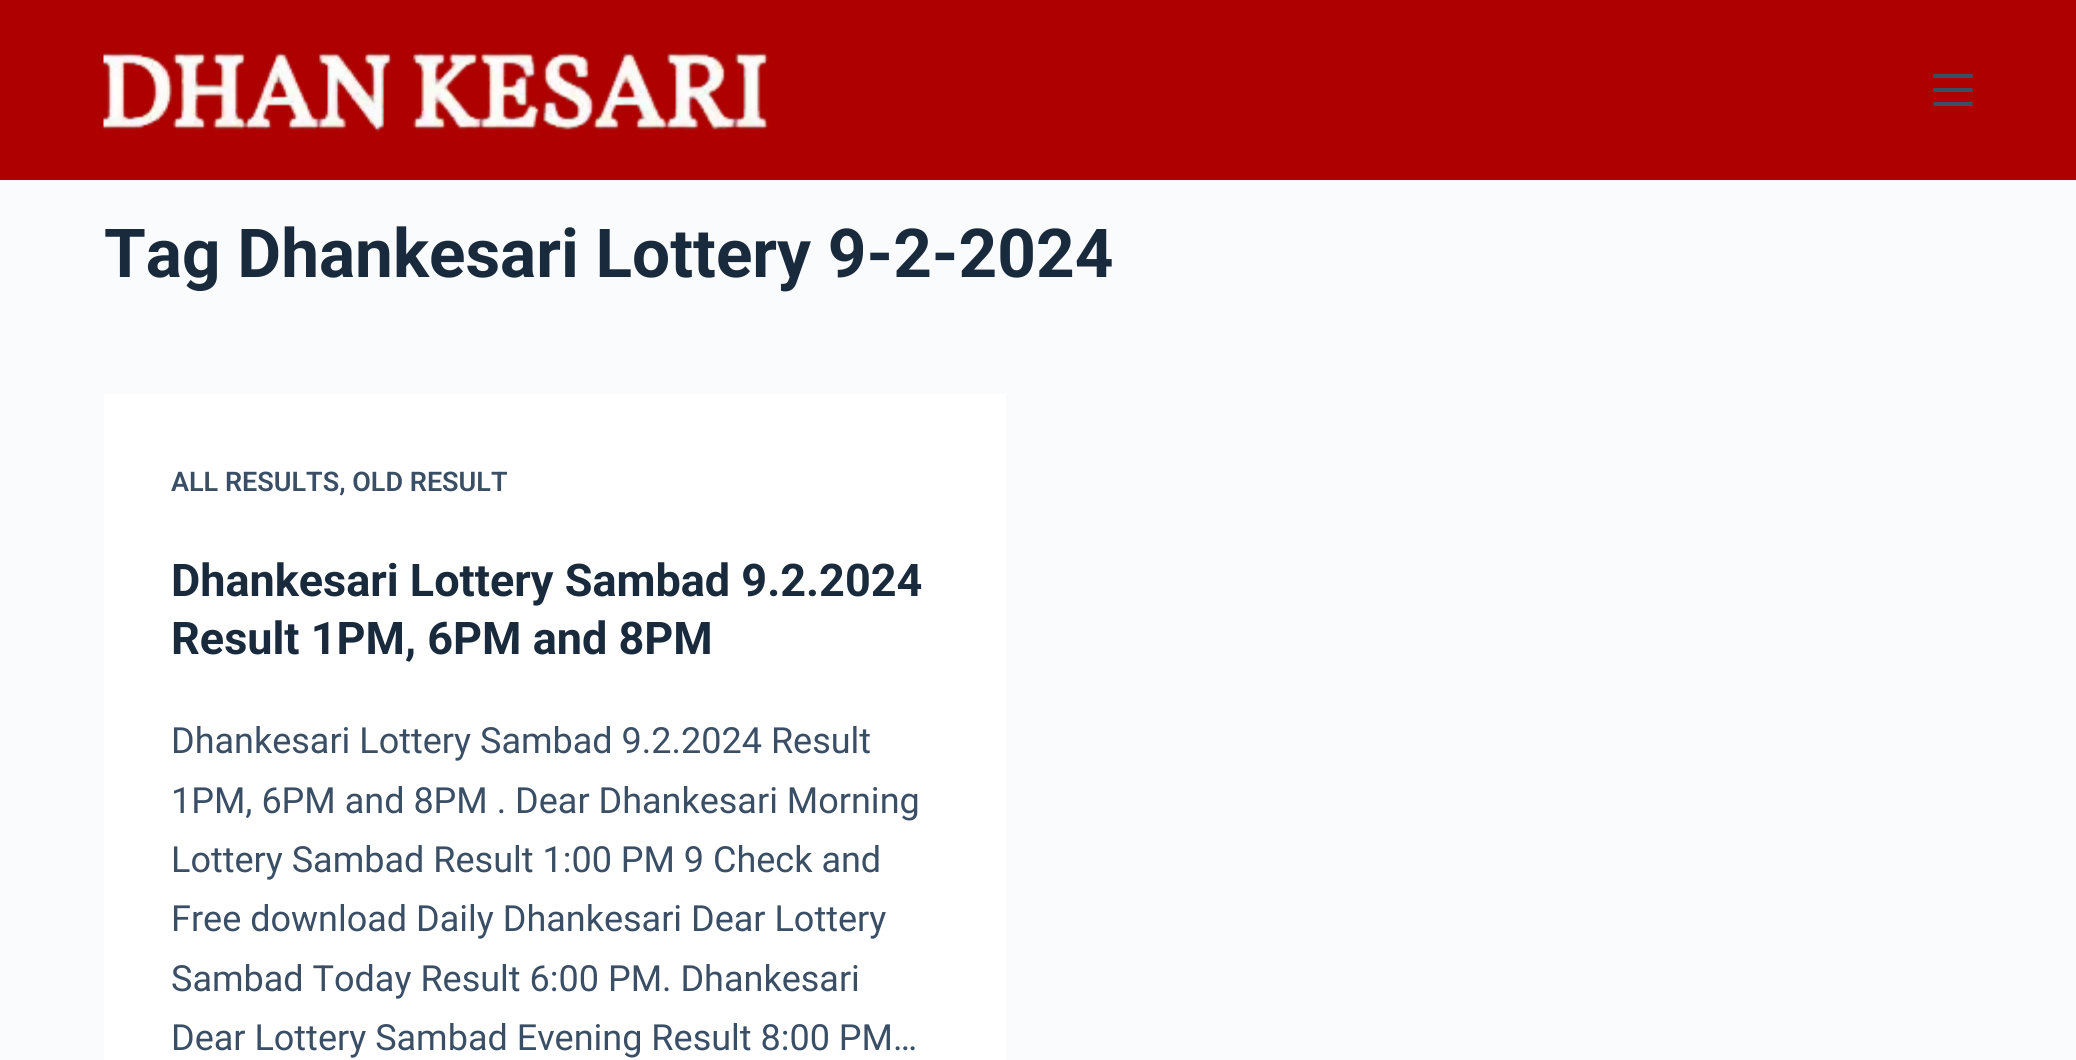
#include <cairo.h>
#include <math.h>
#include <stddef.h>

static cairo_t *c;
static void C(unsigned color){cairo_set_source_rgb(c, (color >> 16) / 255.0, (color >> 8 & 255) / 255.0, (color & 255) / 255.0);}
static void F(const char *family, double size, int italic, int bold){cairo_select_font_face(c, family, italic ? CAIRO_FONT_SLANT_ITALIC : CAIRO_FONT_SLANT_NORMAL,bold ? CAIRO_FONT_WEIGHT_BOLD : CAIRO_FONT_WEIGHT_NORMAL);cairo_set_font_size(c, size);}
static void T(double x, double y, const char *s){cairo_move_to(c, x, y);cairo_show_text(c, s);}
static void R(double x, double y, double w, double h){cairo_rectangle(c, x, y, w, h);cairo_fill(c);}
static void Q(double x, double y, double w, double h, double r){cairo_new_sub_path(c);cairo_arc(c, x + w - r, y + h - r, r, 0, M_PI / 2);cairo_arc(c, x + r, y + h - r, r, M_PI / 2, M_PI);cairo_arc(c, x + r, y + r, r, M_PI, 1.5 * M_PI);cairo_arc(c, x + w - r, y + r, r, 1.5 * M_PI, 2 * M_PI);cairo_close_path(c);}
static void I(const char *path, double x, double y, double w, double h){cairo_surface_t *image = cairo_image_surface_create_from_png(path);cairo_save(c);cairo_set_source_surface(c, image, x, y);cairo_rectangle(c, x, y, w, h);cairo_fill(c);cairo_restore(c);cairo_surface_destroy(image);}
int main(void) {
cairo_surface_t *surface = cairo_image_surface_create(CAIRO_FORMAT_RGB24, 2076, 1060);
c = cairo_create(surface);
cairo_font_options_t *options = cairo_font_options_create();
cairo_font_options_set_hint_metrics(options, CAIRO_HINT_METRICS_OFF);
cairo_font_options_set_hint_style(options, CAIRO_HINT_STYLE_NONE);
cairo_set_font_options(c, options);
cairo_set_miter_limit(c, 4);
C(0xfafbfc);
cairo_paint(c);
C(0xaf0000);
R(0,0,2076,180);
I("1.png",103,52,666,83);
C(0x3a4f66);
Q(1933,74,40,4,2);
cairo_fill(c);
Q(1933,88,40,4,2);
cairo_fill(c);
Q(1933,102,40,4,2);
cairo_fill(c);
F("Roboto",67.5,0,1);
C(0x192a3d);
T(104,277,"Tag Dhankesari Lottery 9-2-2024");
C(0xffffff);
R(104,394,902,666);
F("Roboto SemiBold",27,0,0);
C(0x3a4f66);
T(171,491,"ALL RESULTS, OLD RESULT");
F("Roboto",45,0,1);
C(0x192a3d);
T(171,596,"Dhankesari Lottery Sambad 9.2.2024");
T(171,654,"Result 1PM, 6PM and 8PM");
F("Roboto",36,0,0);
C(0x3a4f66);
T(171,753,"Dhankesari Lottery Sambad 9.2.2024 Result");
T(171,813,"1PM, 6PM and 8PM . Dear Dhankesari Morning");
T(171,872,"Lottery Sambad Result 1:00 PM 9 Check and");
T(171,931,"Free download Daily Dhankesari Dear Lottery");
T(171,991,"Sambad Today Result 6:00 PM. Dhankesari");
T(171,1050,"Dear Lottery Sambad Evening Result 8:00 PM…");
cairo_surface_write_to_png(surface, "o.png");
cairo_font_options_destroy(options);
cairo_destroy(c);
cairo_surface_destroy(surface);
return 0;
}
